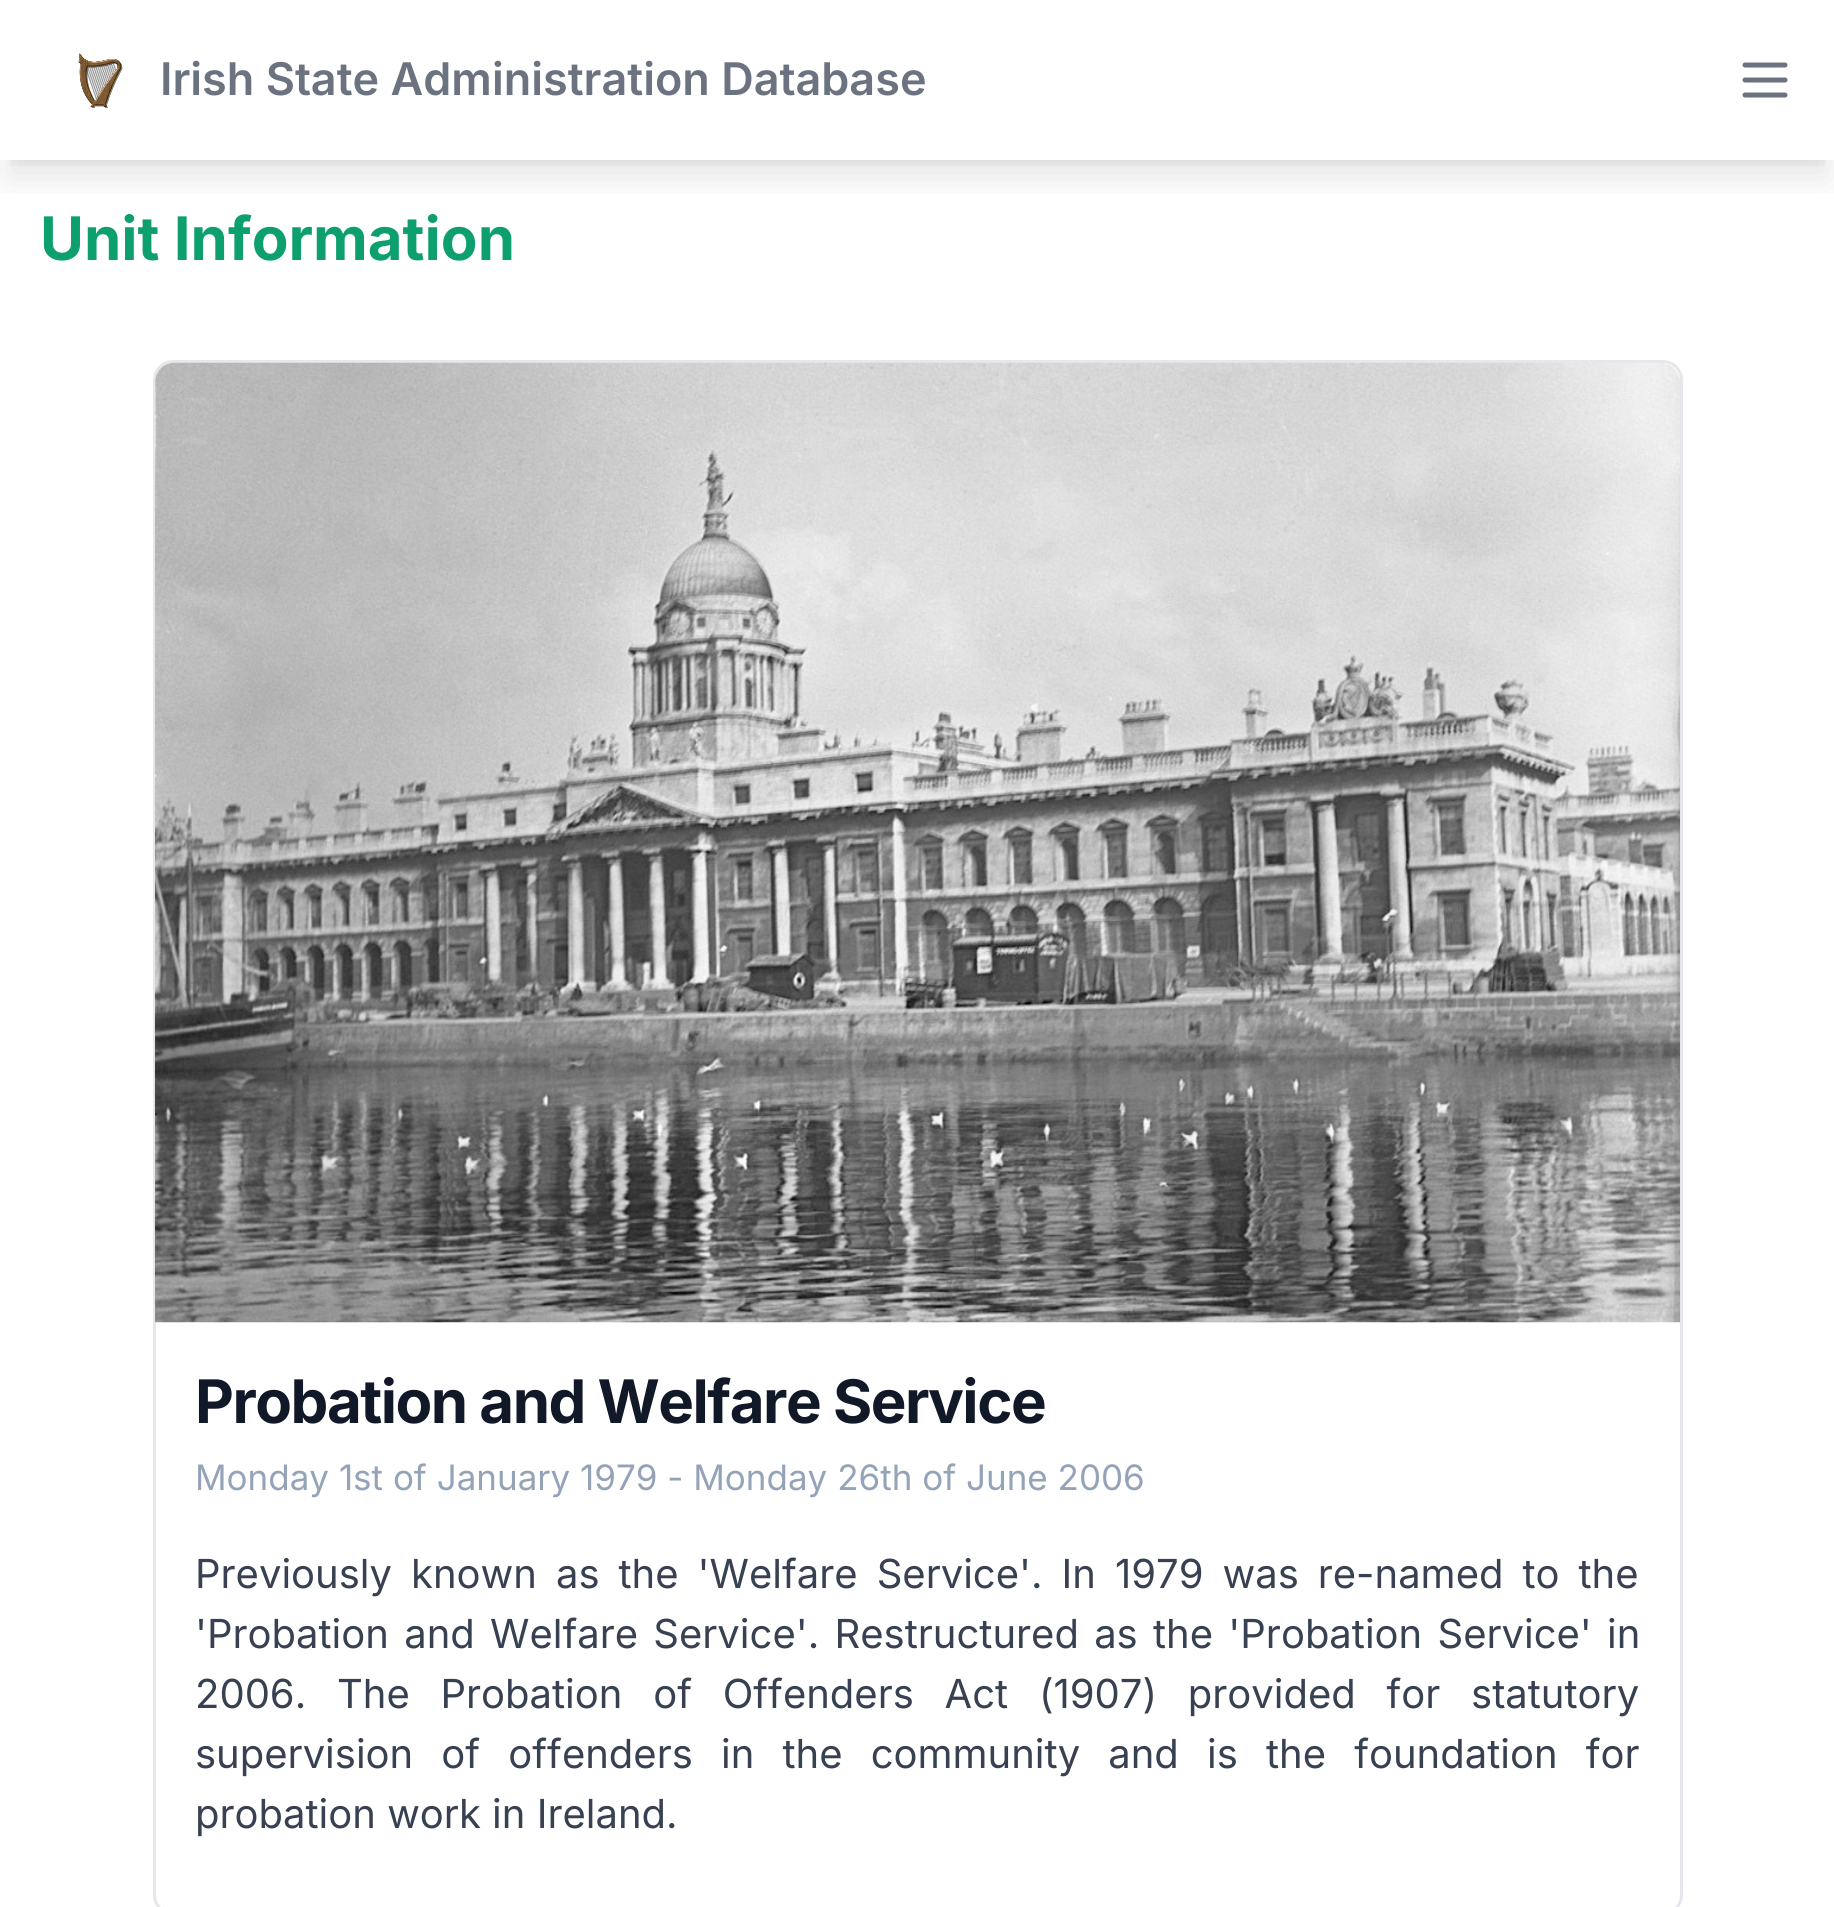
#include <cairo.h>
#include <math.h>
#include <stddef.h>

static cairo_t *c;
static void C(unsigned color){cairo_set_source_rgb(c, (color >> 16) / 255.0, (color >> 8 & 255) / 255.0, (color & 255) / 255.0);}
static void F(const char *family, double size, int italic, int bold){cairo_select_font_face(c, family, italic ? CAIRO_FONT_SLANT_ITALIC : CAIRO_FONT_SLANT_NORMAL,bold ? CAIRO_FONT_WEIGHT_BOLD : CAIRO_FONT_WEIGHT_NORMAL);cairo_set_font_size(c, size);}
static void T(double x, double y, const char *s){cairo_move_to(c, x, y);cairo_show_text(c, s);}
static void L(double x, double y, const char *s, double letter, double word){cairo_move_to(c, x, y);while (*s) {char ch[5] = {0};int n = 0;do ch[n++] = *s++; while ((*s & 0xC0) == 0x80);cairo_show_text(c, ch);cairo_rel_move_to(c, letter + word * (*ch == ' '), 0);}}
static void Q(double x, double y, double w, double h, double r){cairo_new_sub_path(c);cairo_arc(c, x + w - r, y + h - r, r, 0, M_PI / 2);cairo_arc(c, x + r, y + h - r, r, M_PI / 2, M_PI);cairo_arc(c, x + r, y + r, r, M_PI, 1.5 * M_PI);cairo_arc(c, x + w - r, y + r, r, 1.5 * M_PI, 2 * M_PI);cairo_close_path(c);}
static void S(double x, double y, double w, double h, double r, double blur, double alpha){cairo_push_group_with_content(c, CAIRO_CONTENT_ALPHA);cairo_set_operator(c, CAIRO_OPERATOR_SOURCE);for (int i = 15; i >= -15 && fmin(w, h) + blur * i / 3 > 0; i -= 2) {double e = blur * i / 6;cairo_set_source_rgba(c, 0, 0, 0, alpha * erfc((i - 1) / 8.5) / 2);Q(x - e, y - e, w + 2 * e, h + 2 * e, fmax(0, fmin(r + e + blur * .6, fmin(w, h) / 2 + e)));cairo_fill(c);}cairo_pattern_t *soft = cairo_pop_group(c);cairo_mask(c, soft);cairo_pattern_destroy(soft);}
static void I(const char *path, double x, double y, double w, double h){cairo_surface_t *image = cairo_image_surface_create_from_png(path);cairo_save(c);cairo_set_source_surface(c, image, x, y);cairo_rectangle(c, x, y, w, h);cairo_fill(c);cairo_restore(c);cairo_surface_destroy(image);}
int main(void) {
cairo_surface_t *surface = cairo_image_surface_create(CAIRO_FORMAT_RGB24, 1834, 1907);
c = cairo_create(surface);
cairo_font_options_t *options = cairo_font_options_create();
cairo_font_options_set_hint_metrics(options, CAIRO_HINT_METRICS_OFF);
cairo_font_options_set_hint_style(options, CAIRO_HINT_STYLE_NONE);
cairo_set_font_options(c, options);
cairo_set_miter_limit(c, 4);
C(0xffffff);
cairo_paint(c);
cairo_save(c);
cairo_rectangle(c,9,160,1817,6);
cairo_clip(c);
C(0x000000);
S(10,20,1815,140,0,7.5,.1);
cairo_restore(c);
cairo_save(c);
cairo_rectangle(c,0,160,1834,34);
cairo_clip(c);
C(0x000000);
S(8,33,1820,145,0,19,.1);
cairo_restore(c);
I("1.png",78,53,45,55);
F("Inter SemiBold",45,0,0);
C(0x6b7280);
T(160,95,"Irish State Administration Database");
cairo_new_path(c);
cairo_move_to(c,1745,65);
cairo_line_to(c,1785,65);
cairo_move_to(c,1745,80);
cairo_line_to(c,1785,80);
cairo_move_to(c,1745,95);
cairo_line_to(c,1785,95);
cairo_set_line_width(c,5);
cairo_set_line_cap(c,CAIRO_LINE_CAP_ROUND);
cairo_set_line_join(c,CAIRO_LINE_JOIN_ROUND);
cairo_stroke(c);
F("Inter",60,0,1);
C(0x0e9f6e);
T(40,260,"Unit Information");
Q(154.5,361.5,1527,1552,18.5);
C(0xe5e7eb);
cairo_set_line_width(c,3);
cairo_set_line_cap(c,CAIRO_LINE_CAP_BUTT);
cairo_set_line_join(c,CAIRO_LINE_JOIN_MITER);
cairo_stroke(c);
I("2.png",155,362,1525,961);
C(0x111827);
L(195,1423,"Probation and Welfare Service",-1.5,0);
F("Inter",35,0,0);
C(0x94a3b8);
T(195,1490,"Monday 1st of January 1979 - Monday 26th of June 2006");
F("Inter",40,0,0);
C(0x374151);
L(195,1588,"Previously known as the 'Welfare Service'. In 1979 was re-named to the",0,7.75);
L(195,1648,"'Probation and Welfare Service'. Restructured as the 'Probation Service' in",0,4);
L(195,1708,"2006. The Probation of Offenders Act (1907) provided for statutory",0,19.5);
L(195,1768,"supervision of offenders in the community and is the foundation for",0,16.9);
T(195,1828,"probation work in Ireland.");
cairo_surface_write_to_png(surface, "o.png");
cairo_font_options_destroy(options);
cairo_destroy(c);
cairo_surface_destroy(surface);
return 0;
}
